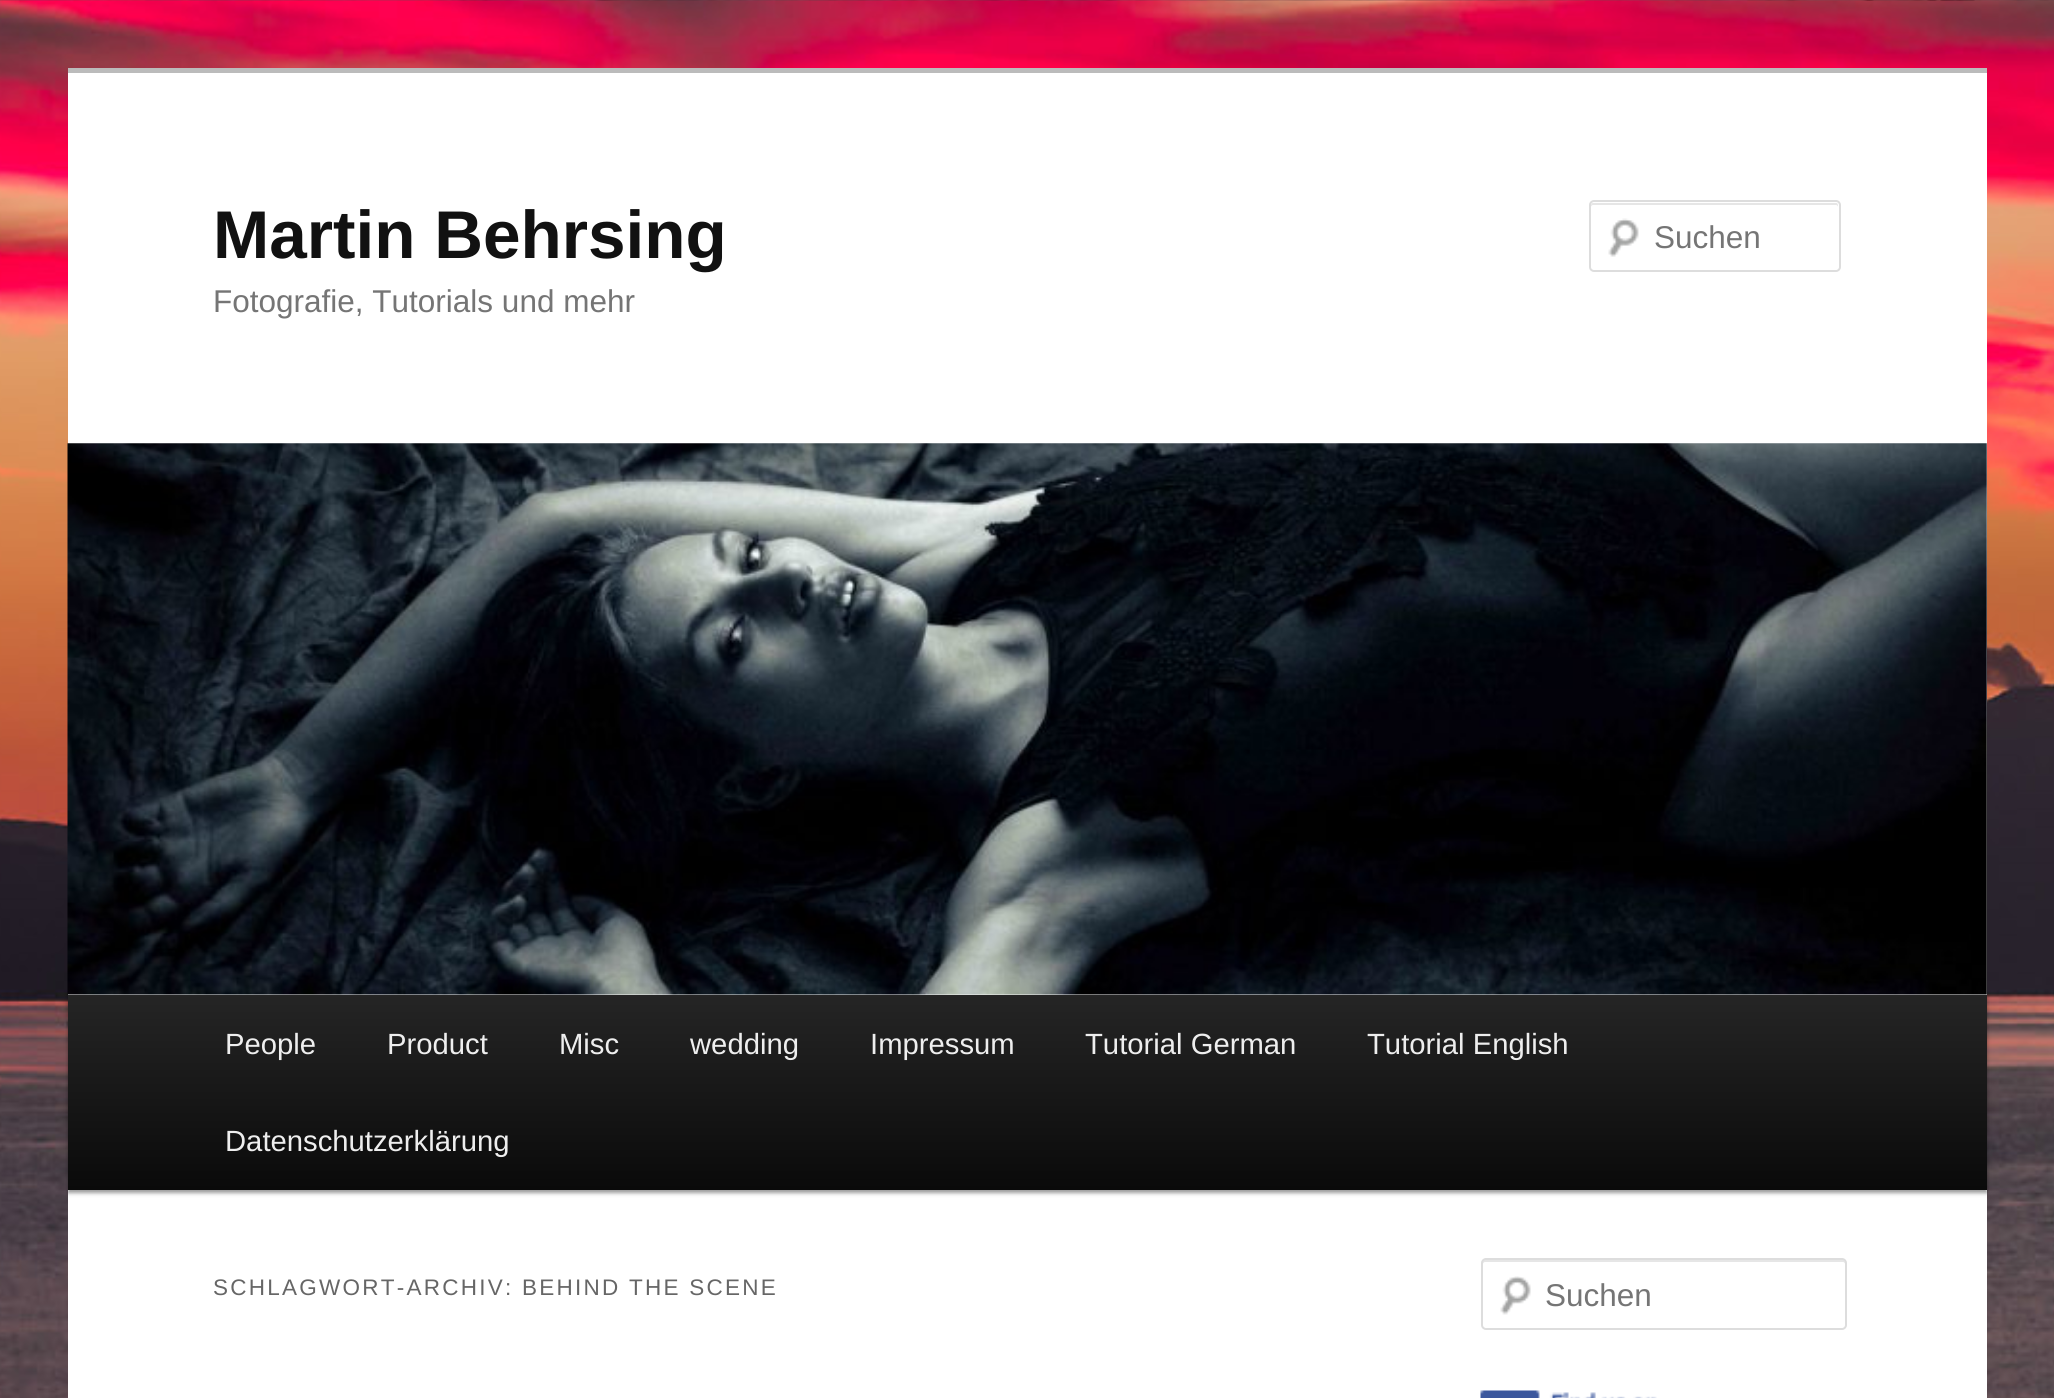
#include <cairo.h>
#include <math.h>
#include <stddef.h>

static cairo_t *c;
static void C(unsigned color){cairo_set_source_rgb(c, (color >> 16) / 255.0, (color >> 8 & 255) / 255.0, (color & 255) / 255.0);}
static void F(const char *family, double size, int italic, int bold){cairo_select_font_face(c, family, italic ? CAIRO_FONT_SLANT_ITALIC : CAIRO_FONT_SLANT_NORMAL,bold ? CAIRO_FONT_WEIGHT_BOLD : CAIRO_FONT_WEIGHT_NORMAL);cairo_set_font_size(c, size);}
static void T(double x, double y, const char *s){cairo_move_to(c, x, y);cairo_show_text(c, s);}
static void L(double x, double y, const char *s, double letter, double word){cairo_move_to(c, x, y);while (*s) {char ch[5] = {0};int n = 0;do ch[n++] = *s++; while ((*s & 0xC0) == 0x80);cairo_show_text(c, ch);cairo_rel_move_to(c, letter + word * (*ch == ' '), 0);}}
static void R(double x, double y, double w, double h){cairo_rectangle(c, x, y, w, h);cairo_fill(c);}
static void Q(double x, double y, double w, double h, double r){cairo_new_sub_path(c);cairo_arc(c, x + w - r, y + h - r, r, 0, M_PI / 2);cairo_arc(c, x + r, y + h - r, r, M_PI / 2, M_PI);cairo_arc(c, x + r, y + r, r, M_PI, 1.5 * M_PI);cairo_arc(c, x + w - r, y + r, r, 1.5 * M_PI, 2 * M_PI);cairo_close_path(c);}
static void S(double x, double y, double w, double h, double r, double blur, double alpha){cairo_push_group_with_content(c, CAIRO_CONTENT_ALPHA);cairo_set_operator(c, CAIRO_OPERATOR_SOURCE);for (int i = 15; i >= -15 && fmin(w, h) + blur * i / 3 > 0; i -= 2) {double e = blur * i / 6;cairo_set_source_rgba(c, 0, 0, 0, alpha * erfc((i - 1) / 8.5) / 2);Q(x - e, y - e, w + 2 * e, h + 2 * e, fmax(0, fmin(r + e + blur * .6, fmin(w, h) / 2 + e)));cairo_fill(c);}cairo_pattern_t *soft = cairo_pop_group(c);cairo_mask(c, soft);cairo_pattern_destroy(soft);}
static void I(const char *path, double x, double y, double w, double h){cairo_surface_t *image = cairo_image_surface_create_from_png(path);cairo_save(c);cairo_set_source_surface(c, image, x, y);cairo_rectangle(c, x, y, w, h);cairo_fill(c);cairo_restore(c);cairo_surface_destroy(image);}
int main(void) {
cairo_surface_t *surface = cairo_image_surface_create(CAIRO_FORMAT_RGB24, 2054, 1398);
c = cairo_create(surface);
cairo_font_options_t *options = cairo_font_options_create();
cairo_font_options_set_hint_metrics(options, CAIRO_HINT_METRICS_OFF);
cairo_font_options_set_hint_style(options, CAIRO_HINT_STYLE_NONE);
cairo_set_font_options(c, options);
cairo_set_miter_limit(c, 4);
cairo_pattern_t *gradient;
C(0xffffff);
cairo_paint(c);
I("1.png",0,0,2054,1398);
C(0xffffff);
R(68,73,1919,1325);
C(0xbbbbbb);
R(68,68,1919,5);
F("Liberation Sans",67.5,0,1);
C(0x111111);
T(213,258,"Martin Behrsing");
F("Liberation Sans",31.5,0,0);
C(0x757575);
T(213,312,"Fotografie, Tutorials und mehr");
I("2.png",1608,218,31,39);
C(0xe6e6e6);
cairo_new_path(c);
cairo_move_to(c,1593,205);
cairo_line_to(c,1836,205);
cairo_curve_to(c,1837,205,1838,206,1838,207);
cairo_curve_to(c,1838,205,1838,203,1836,203);
cairo_line_to(c,1593,203);
cairo_curve_to(c,1591,203,1591,205,1591,207);
cairo_curve_to(c,1591,206,1592,205,1593,205);
cairo_close_path(c);
cairo_fill(c);
Q(1590,201,250,70,4);
C(0xdddddd);
cairo_stroke(c);
C(0x757575);
T(1654,248,"Suchen");
C(0x000000);
S(68,997,1919,196,0,2,.4);
I("3.png",67,443,1920,552);
gradient = cairo_pattern_create_linear(1027,994,1027,1190);
cairo_pattern_add_color_stop_rgba(gradient,0,0.145,0.145,0.145,1);
cairo_pattern_add_color_stop_rgba(gradient,1,0.039,0.039,0.039,1);
cairo_set_source(c,gradient);
cairo_pattern_destroy(gradient);
R(68,995,1919,195);
F("Liberation Sans",29.25,0,0);
C(0xeeeeee);
T(225,1054,"People");
T(387,1054,"Product");
T(559,1054,"Misc");
T(690,1054,"wedding");
T(870,1054,"Impressum");
T(1085,1054,"Tutorial German");
T(1367,1054,"Tutorial English");
T(225,1151,"Datenschutzerklärung");
F("Liberation Sans",22.5,0,0);
C(0x666666);
L(213,1295,"SCHLAGWORT-ARCHIV: BEHIND THE SCENE",2.25,0);
I("4.png",1500,1276,31,39);
C(0xe6e6e6);
cairo_new_path(c);
cairo_move_to(c,1485,1262);
cairo_line_to(c,1843,1262);
cairo_curve_to(c,1844,1262,1845,1263,1845,1264);
cairo_line_to(c,1845,1262);
cairo_curve_to(c,1845,1261,1844,1260,1843,1260);
cairo_line_to(c,1485,1260);
cairo_curve_to(c,1484,1260,1483,1261,1483,1262);
cairo_line_to(c,1483,1264);
cairo_curve_to(c,1483,1263,1484,1262,1485,1262);
cairo_close_path(c);
cairo_fill(c);
Q(1482,1259,364,70,4);
C(0xdddddd);
cairo_stroke(c);
F("Liberation Sans",31.5,0,0);
C(0x757575);
T(1545,1306,"Suchen");
I("5.png",1480,1390,177,8);
cairo_surface_write_to_png(surface, "o.png");
cairo_font_options_destroy(options);
cairo_destroy(c);
cairo_surface_destroy(surface);
return 0;
}
